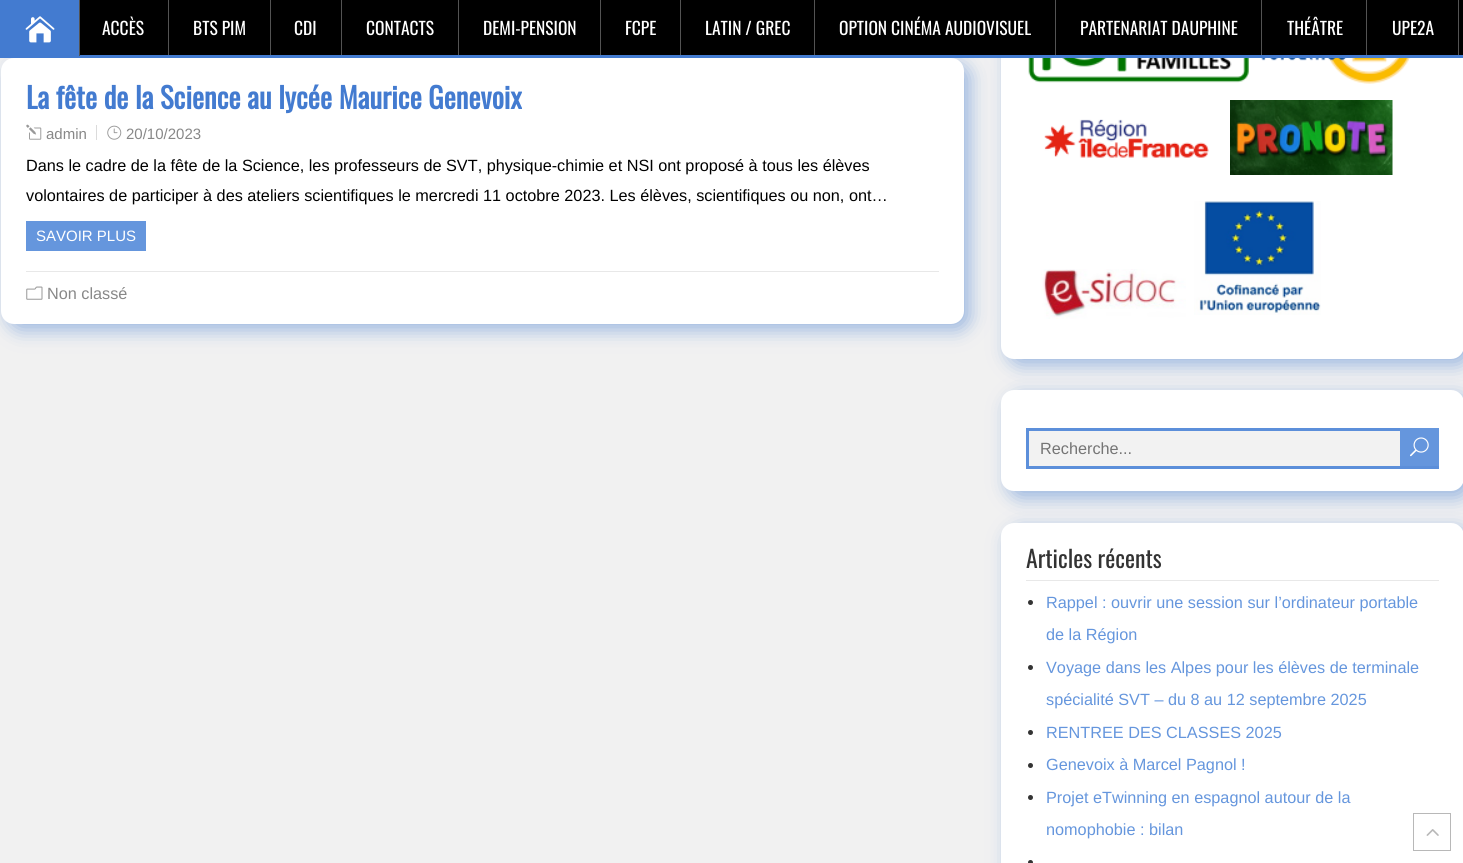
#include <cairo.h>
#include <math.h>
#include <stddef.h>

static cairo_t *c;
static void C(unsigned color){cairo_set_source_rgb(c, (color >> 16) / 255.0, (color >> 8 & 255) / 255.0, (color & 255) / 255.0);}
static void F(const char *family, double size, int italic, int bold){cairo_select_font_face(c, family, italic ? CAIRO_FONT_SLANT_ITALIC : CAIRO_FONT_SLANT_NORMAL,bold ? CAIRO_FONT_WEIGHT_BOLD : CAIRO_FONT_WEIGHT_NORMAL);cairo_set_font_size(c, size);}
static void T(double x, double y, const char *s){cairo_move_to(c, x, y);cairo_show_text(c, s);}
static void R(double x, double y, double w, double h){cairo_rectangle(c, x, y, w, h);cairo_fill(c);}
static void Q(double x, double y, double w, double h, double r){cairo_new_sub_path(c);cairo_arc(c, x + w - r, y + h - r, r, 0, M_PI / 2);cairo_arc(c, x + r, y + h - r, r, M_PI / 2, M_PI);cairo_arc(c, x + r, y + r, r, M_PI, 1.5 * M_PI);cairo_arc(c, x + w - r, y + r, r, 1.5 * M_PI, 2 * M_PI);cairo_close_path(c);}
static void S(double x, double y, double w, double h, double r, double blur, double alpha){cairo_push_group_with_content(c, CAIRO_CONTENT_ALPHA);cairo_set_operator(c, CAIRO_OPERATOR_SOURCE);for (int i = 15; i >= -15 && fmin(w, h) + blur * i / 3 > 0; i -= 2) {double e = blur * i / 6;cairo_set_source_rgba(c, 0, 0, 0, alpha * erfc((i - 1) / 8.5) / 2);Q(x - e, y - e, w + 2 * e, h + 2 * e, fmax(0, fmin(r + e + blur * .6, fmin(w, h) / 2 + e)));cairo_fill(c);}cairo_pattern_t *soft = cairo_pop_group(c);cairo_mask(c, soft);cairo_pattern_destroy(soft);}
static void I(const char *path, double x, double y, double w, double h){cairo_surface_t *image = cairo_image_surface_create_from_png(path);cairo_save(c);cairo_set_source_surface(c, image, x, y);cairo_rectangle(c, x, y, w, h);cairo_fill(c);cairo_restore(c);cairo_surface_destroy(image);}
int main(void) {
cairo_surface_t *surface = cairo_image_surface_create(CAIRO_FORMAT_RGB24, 1463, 863);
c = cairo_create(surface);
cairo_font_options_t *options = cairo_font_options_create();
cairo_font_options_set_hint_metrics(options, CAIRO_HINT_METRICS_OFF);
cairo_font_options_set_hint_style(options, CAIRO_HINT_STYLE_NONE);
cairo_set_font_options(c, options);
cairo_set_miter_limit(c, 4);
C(0xf1f1f1);
cairo_paint(c);
C(0x437bd0);
S(8,64,962,266,13,9.5,.5);
S(1008,-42,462,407,13,9.5,.5);
C(0xffffff);
Q(1001,-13,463,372,13);
cairo_fill(c);
C(0x000000);
R(80,0,1383,55);
C(0x437bd0);
R(0,55,1463,3);
R(0,0,79,55);
C(0x535353);
R(79,0,1,56);
I("1.png",25,16,30,27);
R(168,0,1,55);
F("Oswald",17.5,0,0);
C(0xffffff);
T(102,35,"ACCÈS");
C(0x535353);
R(270,0,1,55);
C(0xffffff);
T(193,35,"BTS PIM");
C(0x535353);
R(341,0,1,55);
C(0xffffff);
T(294,35,"CDI");
C(0x535353);
R(458,0,1,55);
C(0xffffff);
T(366,35,"CONTACTS");
C(0x535353);
R(600,0,1,55);
C(0xffffff);
T(483,35,"DEMI-PENSION");
C(0x535353);
R(680,0,1,55);
C(0xffffff);
T(625,35,"FCPE");
C(0x535353);
R(814,0,1,55);
C(0xffffff);
T(705,35,"LATIN / GREC");
C(0x535353);
R(1055,0,1,55);
C(0xffffff);
T(839,35,"OPTION CINÉMA AUDIOVISUEL");
C(0x535353);
R(1261,0,1,55);
C(0xffffff);
T(1080,35,"PARTENARIAT DAUPHINE");
C(0x535353);
R(1366,0,1,55);
C(0xffffff);
T(1287,35,"THÉÂTRE");
C(0x535353);
R(1458,0,1,55);
C(0xffffff);
T(1392,35,"UPE2A");
Q(1,58,963,266,13);
cairo_fill(c);
F("Oswald",28.75,0,1);
C(0x437bd0);
T(26,109,"La fête de la Science au lycée Maurice Genevoix");
I("2.png",26,124,16,16);
F("Liberation Sans",15,0,0);
C(0x888888);
T(46,139,"admin");
I("3.png",107,125,15,15);
T(126,139,"20/10/2023");
C(0xdbdbdb);
R(96,125,1,15);
F("Liberation Sans",16.25,0,0);
C(0x000000);
T(26,171,"Dans le cadre de la fête de la Science, les professeurs de SVT, physique-chimie et NSI ont proposé à tous les élèves");
T(26,201,"volontaires de participer à des ateliers scientifiques le mercredi 11 octobre 2023. Les élèves, scientifiques ou non, ont…");
C(0x6596dd);
R(26,221,120,30);
F("Liberation Sans",15,0,0);
C(0xffffff);
T(36,241,"SAVOIR PLUS");
C(0xe8e8e8);
R(26,271,913,1);
I("4.png",26,286,17,14);
F("Liberation Sans",16.25,0,0);
C(0x888888);
T(47,299,"Non classé");
I("5.png",1028,58,221,25);
I("6.png",1261,58,150,26);
I("7.png",1044,119,165,39);
I("8.png",1230,100,163,75);
I("9.png",1041,269,145,50);
I("10.png",1194,201,127,114);
C(0x437bd0);
S(1008,396,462,102,13,9.5,.5);
C(0xffffff);
Q(1001,390,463,101,13);
cairo_fill(c);
C(0xf2f2f2);
R(1029,431,371,35);
cairo_rectangle(c,1027.5,429.5,410,38);
C(0x5c8fda);
cairo_set_line_width(c,3);
cairo_stroke(c);
C(0x757575);
T(1040,454,"Recherche...");
C(0x6596dd);
R(1400,428,39,38);
I("11.png",1410,437,19,20);
C(0x437bd0);
S(1008,529,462,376,13,9.5,.5);
C(0xffffff);
Q(1001,523,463,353,13);
cairo_fill(c);
C(0xe8e8e8);
R(1026,580,413,1);
F("Oswald",23.75,0,0);
C(0x333333);
T(1026,568,"Articles récents");
cairo_new_path(c);
cairo_arc(c,1030.5,602.5,2.5,0,2 * M_PI);
cairo_fill(c);
F("Liberation Sans",16.25,0,0);
C(0x6596dd);
T(1046,608,"Rappel : ouvrir une session sur l’ordinateur portable");
T(1046,640,"de la Région");
C(0x333333);
cairo_new_path(c);
cairo_arc(c,1030.5,667.5,2.5,0,2 * M_PI);
cairo_fill(c);
C(0x6596dd);
T(1046,673,"Voyage dans les Alpes pour les élèves de terminale");
T(1046,705,"spécialité SVT – du 8 au 12 septembre 2025");
C(0x333333);
cairo_new_path(c);
cairo_arc(c,1030.5,732.5,2.5,0,2 * M_PI);
cairo_fill(c);
C(0x6596dd);
T(1046,738,"RENTREE DES CLASSES 2025");
C(0x333333);
cairo_new_path(c);
cairo_arc(c,1030.5,765.5,2.5,0,2 * M_PI);
cairo_fill(c);
C(0x6596dd);
T(1046,770,"Genevoix à Marcel Pagnol !");
C(0x333333);
cairo_new_path(c);
cairo_arc(c,1030.5,797.5,2.5,0,2 * M_PI);
cairo_fill(c);
C(0x6596dd);
T(1046,803,"Projet eTwinning en espagnol autour de la");
T(1046,835,"nomophobie : bilan");
C(0x333333);
cairo_new_path(c);
cairo_arc(c,1030.5,862.5,2.5,0,2 * M_PI);
cairo_fill(c);
cairo_rectangle(c,1413.5,813.5,37,37);
C(0xb8b8b8);
cairo_set_line_width(c,1);
cairo_stroke(c);
I("12.png",1426,829,13,7);
cairo_surface_write_to_png(surface, "o.png");
cairo_font_options_destroy(options);
cairo_destroy(c);
cairo_surface_destroy(surface);
return 0;
}
